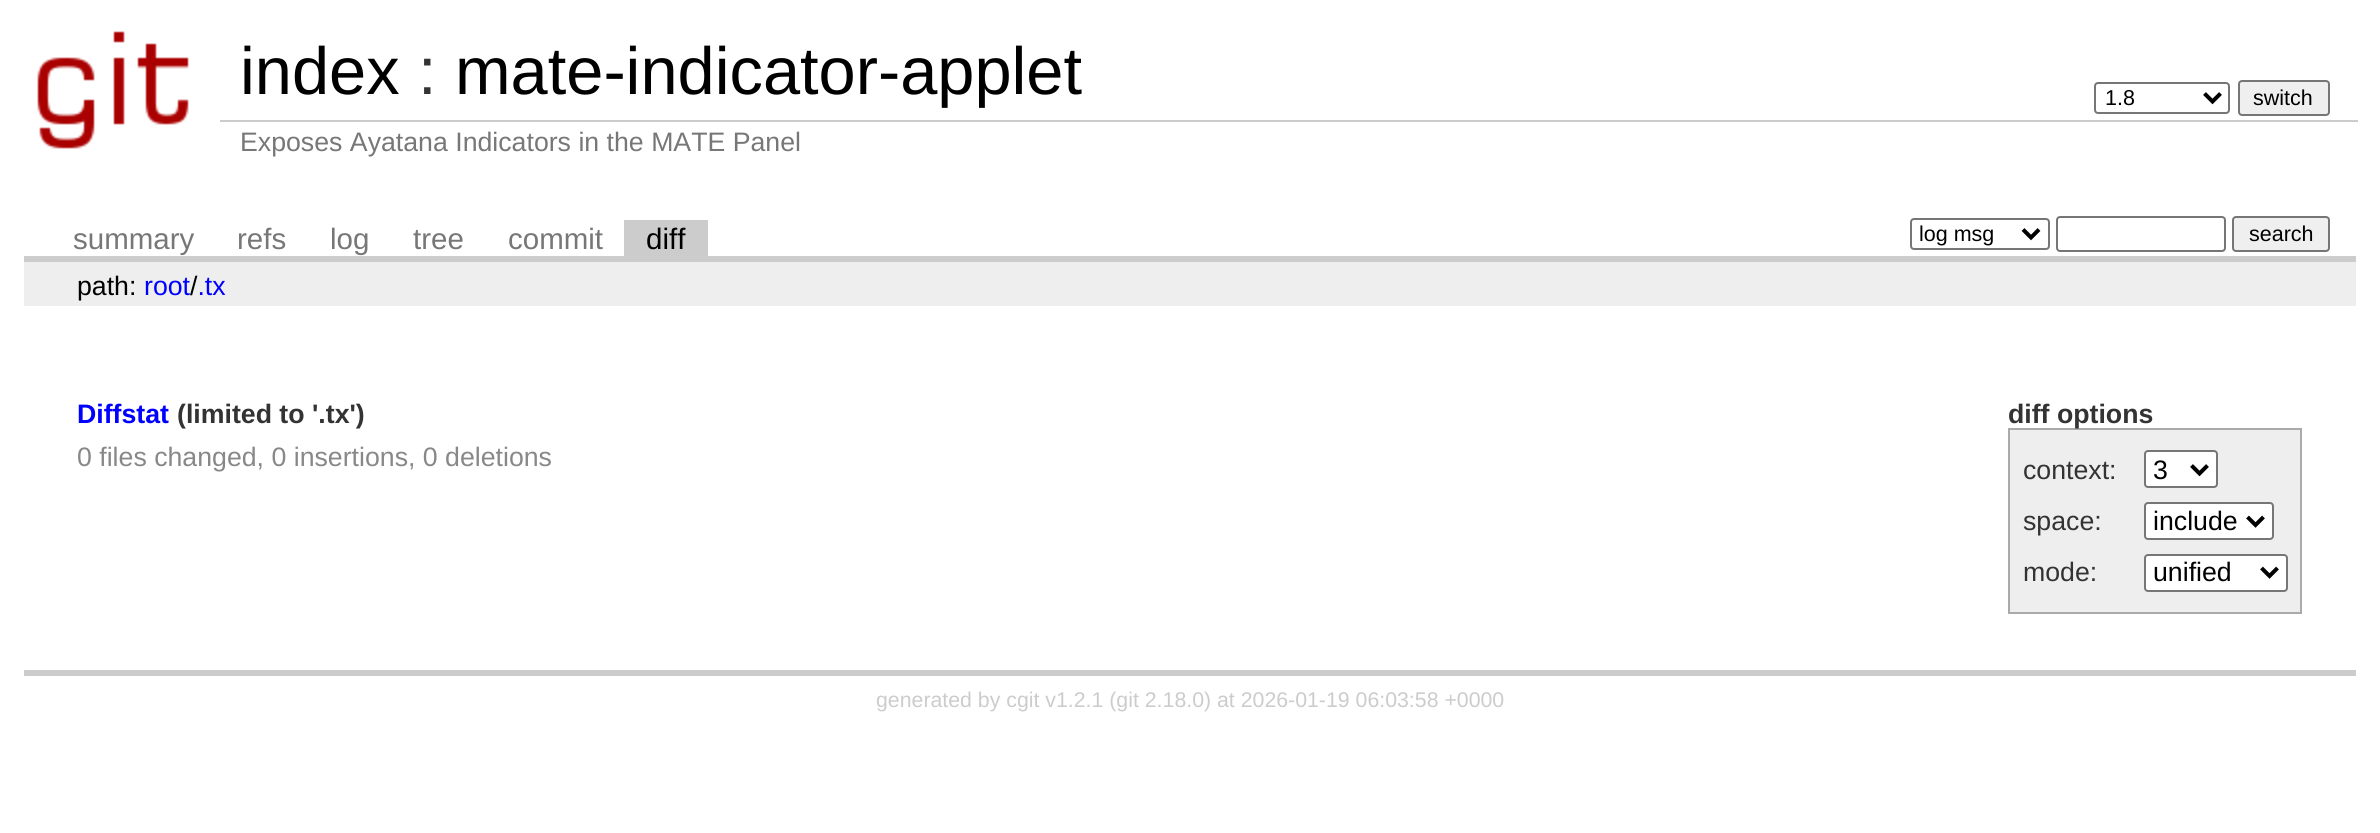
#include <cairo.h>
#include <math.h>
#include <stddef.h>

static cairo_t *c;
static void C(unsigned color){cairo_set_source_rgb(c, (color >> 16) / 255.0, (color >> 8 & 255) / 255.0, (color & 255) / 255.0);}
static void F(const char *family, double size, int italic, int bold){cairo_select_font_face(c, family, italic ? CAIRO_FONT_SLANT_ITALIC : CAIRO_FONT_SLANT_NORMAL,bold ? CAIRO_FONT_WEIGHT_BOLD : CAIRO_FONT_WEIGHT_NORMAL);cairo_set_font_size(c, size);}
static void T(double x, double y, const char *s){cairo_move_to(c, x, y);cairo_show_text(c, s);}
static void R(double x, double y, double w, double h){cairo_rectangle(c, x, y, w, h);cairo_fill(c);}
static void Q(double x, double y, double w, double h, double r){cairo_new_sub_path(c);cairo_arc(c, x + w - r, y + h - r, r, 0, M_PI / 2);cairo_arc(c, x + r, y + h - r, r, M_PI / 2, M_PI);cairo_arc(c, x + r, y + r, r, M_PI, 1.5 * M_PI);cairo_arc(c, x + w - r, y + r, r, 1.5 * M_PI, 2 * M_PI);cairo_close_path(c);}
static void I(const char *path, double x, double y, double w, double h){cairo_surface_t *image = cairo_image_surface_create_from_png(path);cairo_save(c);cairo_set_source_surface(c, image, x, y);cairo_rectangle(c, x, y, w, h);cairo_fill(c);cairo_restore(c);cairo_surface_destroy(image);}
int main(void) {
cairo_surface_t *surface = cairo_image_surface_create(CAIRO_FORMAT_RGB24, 2380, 833);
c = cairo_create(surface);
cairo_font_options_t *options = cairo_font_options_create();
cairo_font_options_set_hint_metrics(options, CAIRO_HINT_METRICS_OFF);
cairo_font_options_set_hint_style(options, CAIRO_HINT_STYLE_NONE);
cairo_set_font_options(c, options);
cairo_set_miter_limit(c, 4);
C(0xffffff);
cairo_paint(c);
I("1.png",37,31,152,118);
F("Liberation Sans",66.75,0,0);
C(0x000000);
T(240,94,"index");
C(0x333333);
T(418,94,":");
C(0x000000);
T(455,94,"mate-indicator-applet");
Q(2095,83,134,30,3);
C(0x767676);
cairo_stroke(c);
cairo_new_path(c);
cairo_move_to(c,2204.5,93.5);
cairo_line_to(c,2212.5,101.5);
cairo_line_to(c,2220.5,93.5);
C(0x000000);
cairo_set_line_width(c,4);
cairo_stroke(c);
F("Liberation Sans",21.5,0,0);
T(2105,105,"1.8");
C(0xefefef);
Q(2239,81,90,34,3);
cairo_fill_preserve(c);
C(0x767676);
cairo_set_line_width(c,2);
cairo_stroke(c);
C(0x000000);
T(2253,105,"switch");
C(0xcccccc);
R(220,120,2138,2);
F("Liberation Sans",26.7,0,0);
C(0x777777);
T(240,151,"Exposes Ayatana Indicators in the MATE Panel");
C(0xcccccc);
R(24,256,2332,6);
F("Liberation Sans",29.5,0,0);
C(0x777777);
T(73,249,"summary");
T(237,249,"refs");
T(330,249,"log");
T(413,249,"tree");
T(508,249,"commit");
C(0xcccccc);
R(624,220,84,36);
C(0x000000);
T(646,249,"diff");
Q(1911,219,138,30,3);
C(0x767676);
cairo_stroke(c);
cairo_new_path(c);
cairo_move_to(c,2023,229.5);
cairo_line_to(c,2031,237.5);
cairo_line_to(c,2039,229.5);
C(0x000000);
cairo_set_line_width(c,4);
cairo_stroke(c);
F("Liberation Sans",21.5,0,0);
T(1919,241,"log msg");
Q(2057,217,168,34,3);
C(0x767676);
cairo_set_line_width(c,2);
cairo_stroke(c);
C(0xefefef);
Q(2233,217,96,34,3);
cairo_fill_preserve(c);
C(0x767676);
cairo_stroke(c);
C(0x000000);
T(2249,241,"search");
C(0xeeeeee);
R(24,262,2332,44);
F("Liberation Sans",26.7,0,0);
C(0x000000);
T(77,295,"path:");
C(0x0000ff);
T(144,295,"root .tx");
C(0x000000);
T(190,295,"/");
C(0xcccccc);
R(24,670,2332,6);
F("Liberation Sans",26.7,0,1);
C(0x0000ff);
T(77,423,"Diffstat");
C(0x333333);
T(177,423,"(limited to '.tx')");
C(0xaaaaaa);
R(2008,428,294,2);
R(2300,428,2,186);
R(2008,612,294,2);
R(2008,428,2,186);
C(0x333333);
T(2008,423,"diff options");
C(0xeeeeee);
R(2010,430,290,182);
F("Liberation Sans",26.7,0,0);
C(0x333333);
T(2023,479,"context:");
C(0xffffff);
Q(2145,451,72,36,3);
cairo_fill_preserve(c);
C(0x767676);
cairo_stroke(c);
cairo_new_path(c);
cairo_move_to(c,2191.5,465.5);
cairo_line_to(c,2199.5,473.5);
cairo_line_to(c,2207.5,465.5);
C(0x000000);
cairo_set_line_width(c,4);
cairo_stroke(c);
T(2153,479,"3");
C(0x333333);
T(2023,530,"space:");
C(0xffffff);
Q(2145,503,128,36,3);
cairo_fill_preserve(c);
C(0x767676);
cairo_set_line_width(c,2);
cairo_stroke(c);
cairo_new_path(c);
cairo_move_to(c,2247.5,517);
cairo_line_to(c,2255.5,525);
cairo_line_to(c,2263.5,517);
C(0x000000);
cairo_set_line_width(c,4);
cairo_stroke(c);
T(2153,530,"include");
C(0x333333);
T(2023,581,"mode:");
C(0xffffff);
Q(2145,555,142,36,3);
cairo_fill_preserve(c);
C(0x767676);
cairo_set_line_width(c,2);
cairo_stroke(c);
cairo_new_path(c);
cairo_move_to(c,2261.5,568);
cairo_line_to(c,2269.5,576);
cairo_line_to(c,2277.5,568);
C(0x000000);
cairo_set_line_width(c,4);
cairo_stroke(c);
T(2153,581,"unified");
C(0x888888);
T(77,466,"0 files changed, 0 insertions, 0 deletions");
F("Liberation Sans",21.3,0,0);
C(0xcccccc);
T(876,707,"generated by cgit v1.2.1 (git 2.18.0) at 2026-01-19 06:03:58 +0000");
cairo_surface_write_to_png(surface, "o.png");
cairo_font_options_destroy(options);
cairo_destroy(c);
cairo_surface_destroy(surface);
return 0;
}
